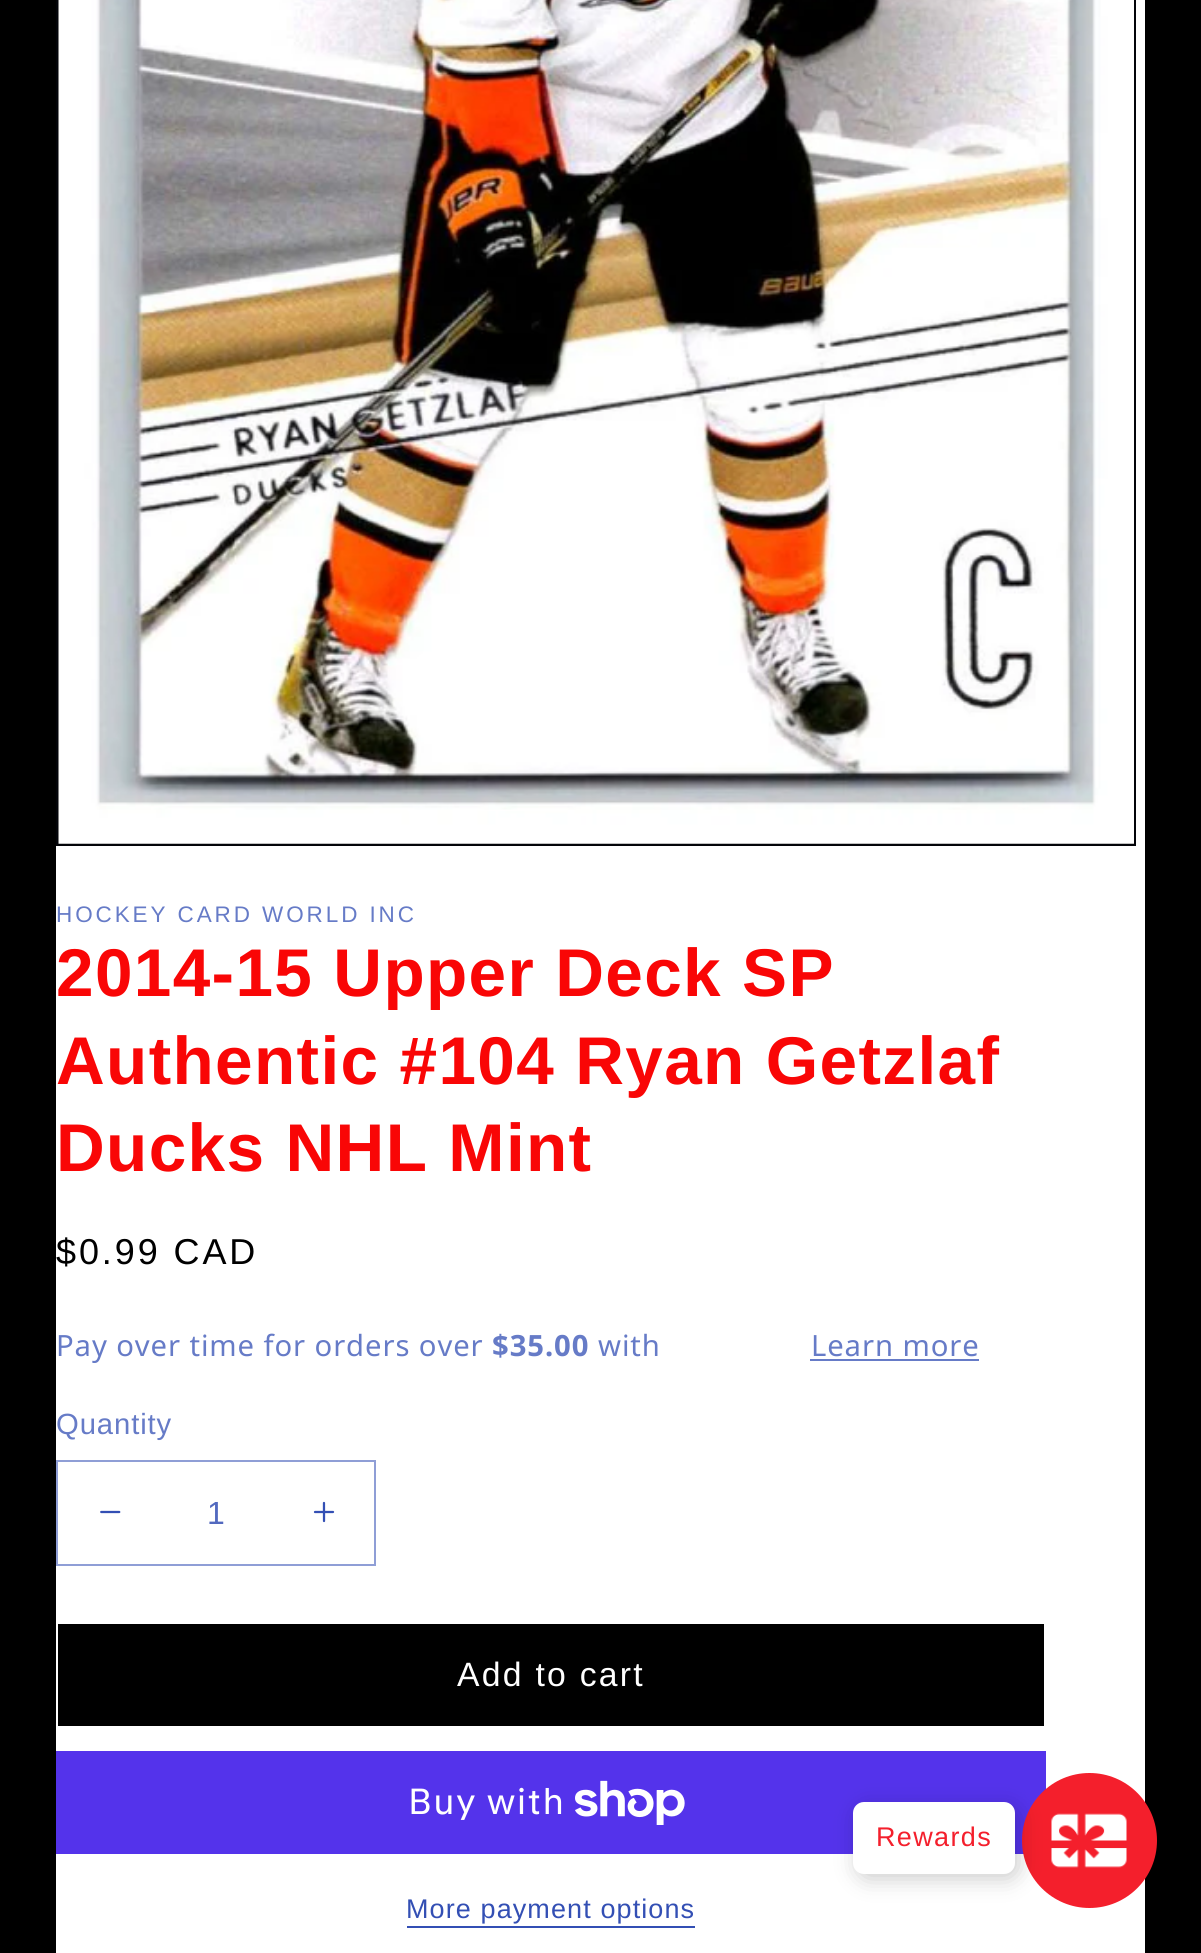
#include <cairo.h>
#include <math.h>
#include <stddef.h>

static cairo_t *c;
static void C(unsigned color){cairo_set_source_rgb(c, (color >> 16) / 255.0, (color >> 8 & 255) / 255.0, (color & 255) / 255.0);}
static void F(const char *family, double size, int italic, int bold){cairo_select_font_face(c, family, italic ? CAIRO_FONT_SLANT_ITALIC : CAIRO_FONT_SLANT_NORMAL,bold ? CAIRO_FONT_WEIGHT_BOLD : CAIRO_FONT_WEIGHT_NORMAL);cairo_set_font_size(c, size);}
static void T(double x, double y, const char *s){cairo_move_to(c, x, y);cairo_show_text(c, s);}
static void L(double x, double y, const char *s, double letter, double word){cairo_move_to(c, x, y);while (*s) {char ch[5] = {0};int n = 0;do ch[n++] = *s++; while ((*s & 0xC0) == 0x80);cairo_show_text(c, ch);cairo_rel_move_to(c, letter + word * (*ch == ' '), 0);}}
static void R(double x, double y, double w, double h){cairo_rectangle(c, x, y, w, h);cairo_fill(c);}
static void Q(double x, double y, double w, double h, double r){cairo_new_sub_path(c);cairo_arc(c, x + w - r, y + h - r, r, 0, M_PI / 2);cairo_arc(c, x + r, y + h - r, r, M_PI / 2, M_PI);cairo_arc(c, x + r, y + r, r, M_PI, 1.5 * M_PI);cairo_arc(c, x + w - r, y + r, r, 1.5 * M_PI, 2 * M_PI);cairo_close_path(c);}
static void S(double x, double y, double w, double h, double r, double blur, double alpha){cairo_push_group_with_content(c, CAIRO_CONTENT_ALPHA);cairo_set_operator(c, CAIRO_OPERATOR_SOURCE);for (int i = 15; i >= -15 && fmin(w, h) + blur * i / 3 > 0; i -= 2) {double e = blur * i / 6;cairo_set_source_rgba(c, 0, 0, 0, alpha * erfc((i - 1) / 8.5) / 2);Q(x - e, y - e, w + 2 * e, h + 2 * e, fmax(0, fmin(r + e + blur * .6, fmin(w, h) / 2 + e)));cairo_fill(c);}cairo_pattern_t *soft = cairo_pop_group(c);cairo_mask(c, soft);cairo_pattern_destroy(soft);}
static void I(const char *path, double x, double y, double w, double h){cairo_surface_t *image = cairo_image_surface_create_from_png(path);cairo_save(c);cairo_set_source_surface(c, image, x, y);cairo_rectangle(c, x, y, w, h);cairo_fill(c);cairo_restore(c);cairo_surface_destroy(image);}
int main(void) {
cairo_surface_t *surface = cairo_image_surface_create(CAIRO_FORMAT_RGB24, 1201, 1953);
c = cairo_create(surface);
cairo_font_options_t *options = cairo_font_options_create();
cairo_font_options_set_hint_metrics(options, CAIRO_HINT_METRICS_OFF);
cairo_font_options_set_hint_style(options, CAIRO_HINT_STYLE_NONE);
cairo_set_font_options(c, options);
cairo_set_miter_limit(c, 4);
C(0x000000);
cairo_paint(c);
C(0xffffff);
R(56,0,1089,1953);
C(0x000000);
cairo_rectangle(c,57,-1,1078,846);
cairo_fill_preserve(c);
C(0x030409);
cairo_stroke(c);
I("1.png",58,0,1076,844);
F("Liberation Sans",22.5,0,0);
C(0x667bc7);
L(56,922,"HOCKEY CARD WORLD INC",2.9,0);
F("Liberation Sans",67.5,0,1);
C(0xf90606);
L(56,996,"2014-15 Upper Deck SP",1.35,0);
L(56,1084,"Authentic #104 Ryan Getzlaf",1.35,0);
L(56,1171,"Ducks NHL Mint",1.35,0);
F("Liberation Sans",36,0,0);
C(0x000000);
L(56,1264,"$0.99 CAD",2.9,0);
F("Noto Sans",29.25,0,0);
C(0x667bc7);
L(56,1356,"Pay over time for orders over",.9,0);
F("Noto Sans",29.25,0,1);
L(492,1356,"$35.00",.9,0);
F("Noto Sans",29.25,0,0);
L(598,1356,"with",.9,0);
L(811,1356,"Learn more",.9,0);
R(810,1359,169,2);
F("Liberation Sans",29.25,0,0);
L(56,1434,"Quantity",.9,0);
I("2.png",100,1510,21,4);
I("3.png",313,1501,22,22);
cairo_rectangle(c,57,1461,318,104);
C(0x8f9ed6);
cairo_stroke(c);
F("Liberation Sans",32,0,0);
C(0x5269bf);
T(207,1524,"1");
C(0x000000);
R(58,1624,986,102);
F("Liberation Sans",33.75,0,0);
C(0xffffff);
L(457,1686,"Add to cart",2.25,0);
C(0x5433eb);
R(56,1751,990,103);
F("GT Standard",36,0,0);
C(0xffffff);
L(408,1814,"Buy with",1.35,0);
I("4.png",575,1780,110,45);
F("Liberation Sans",27,0,0);
C(0x334fb4);
L(406,1918,"More payment options",1.1,0);
R(407,1926,288,2);
C(0xf41f2c);
cairo_new_path(c);
cairo_arc(c,1089.5,1840.5,67.5,0,2 * M_PI);
cairo_fill(c);
I("5.png",1051,1813,76,55);
C(0x000000);
S(857,1807,162,72,11,11,.2);
C(0xffffff);
Q(853,1802,162,72,11);
cairo_fill(c);
C(0xf41f2c);
L(876,1846,"Rewards",1.35,0);
cairo_surface_write_to_png(surface, "o.png");
cairo_font_options_destroy(options);
cairo_destroy(c);
cairo_surface_destroy(surface);
return 0;
}
